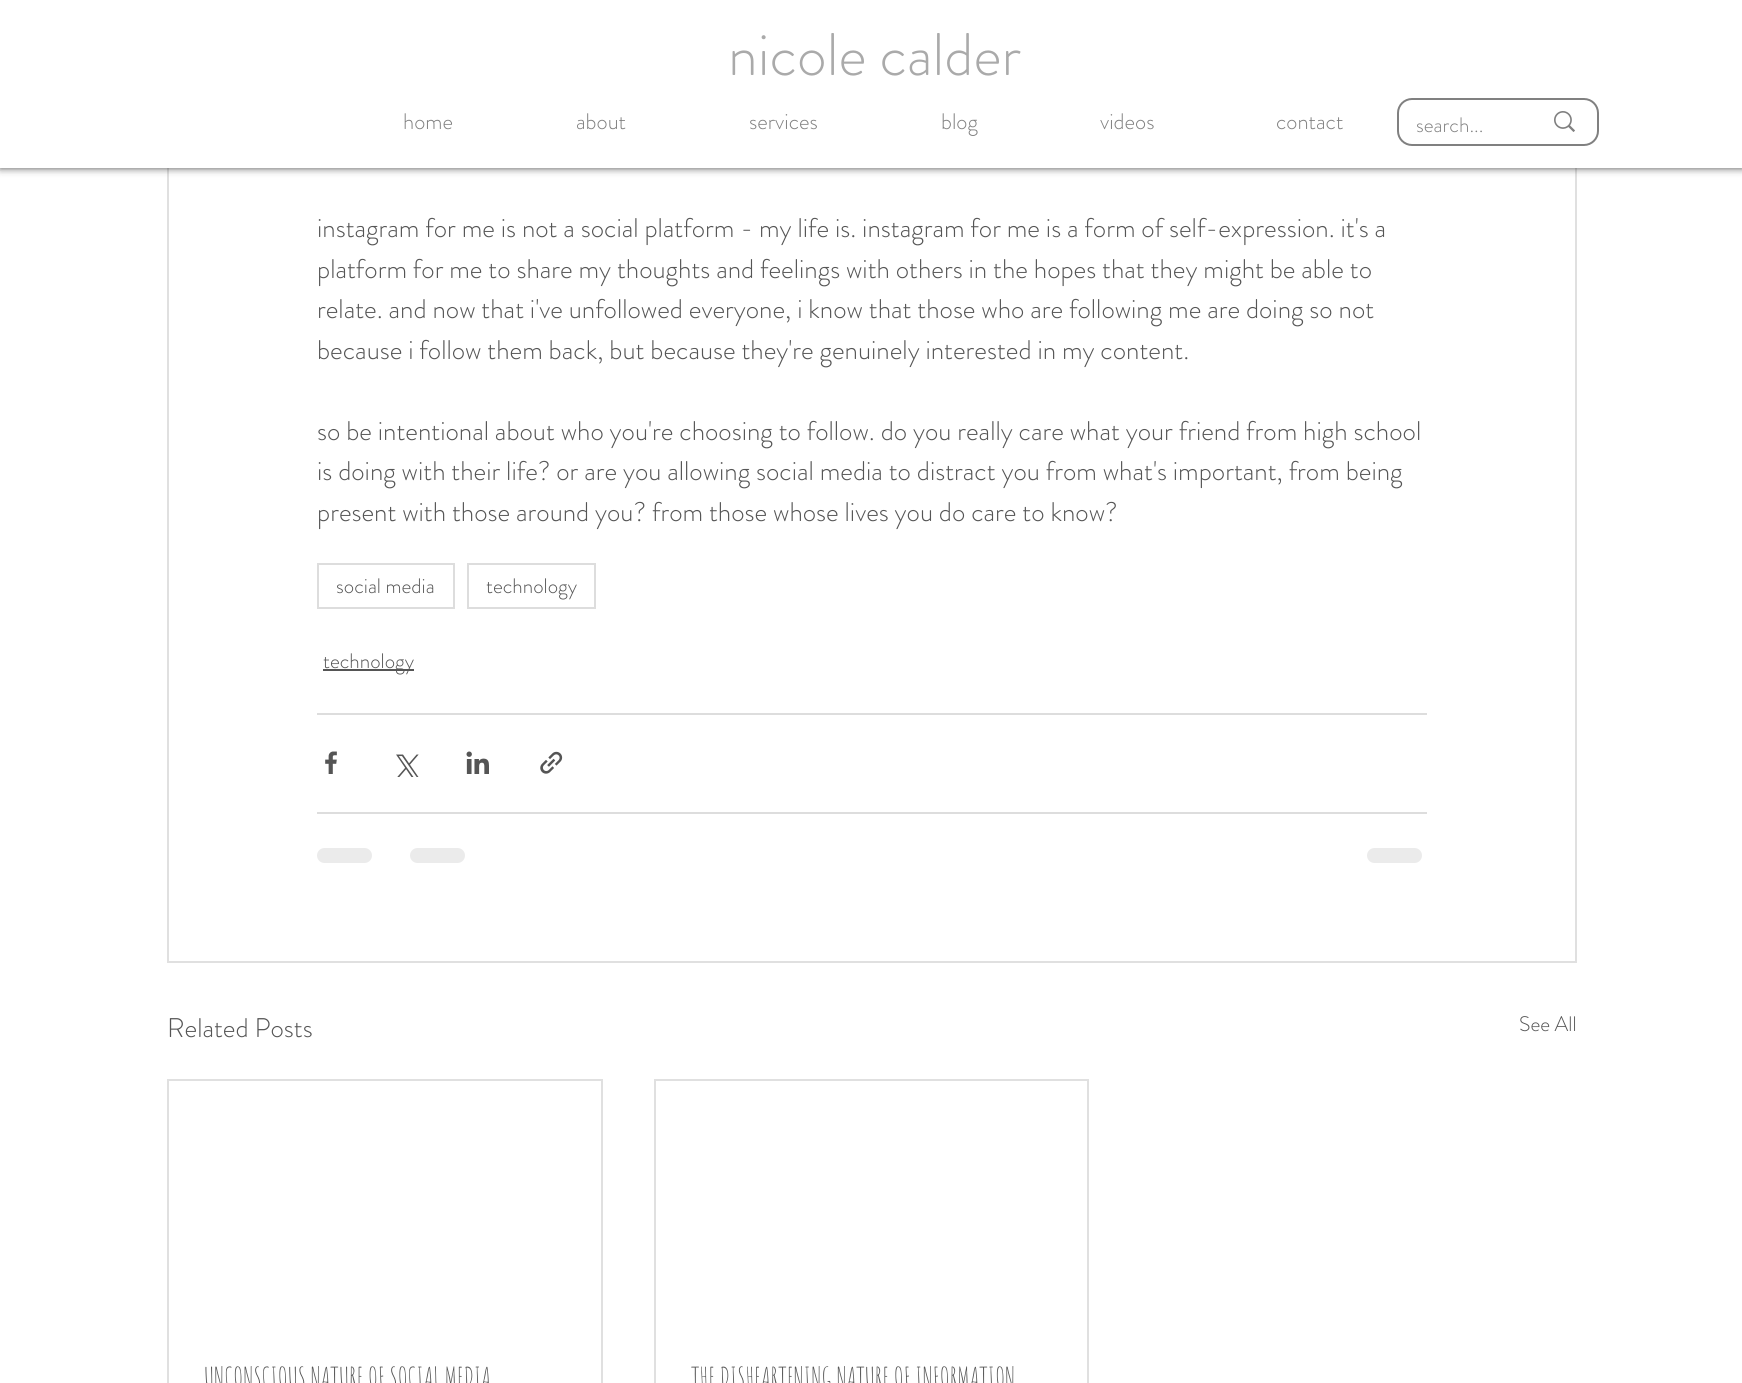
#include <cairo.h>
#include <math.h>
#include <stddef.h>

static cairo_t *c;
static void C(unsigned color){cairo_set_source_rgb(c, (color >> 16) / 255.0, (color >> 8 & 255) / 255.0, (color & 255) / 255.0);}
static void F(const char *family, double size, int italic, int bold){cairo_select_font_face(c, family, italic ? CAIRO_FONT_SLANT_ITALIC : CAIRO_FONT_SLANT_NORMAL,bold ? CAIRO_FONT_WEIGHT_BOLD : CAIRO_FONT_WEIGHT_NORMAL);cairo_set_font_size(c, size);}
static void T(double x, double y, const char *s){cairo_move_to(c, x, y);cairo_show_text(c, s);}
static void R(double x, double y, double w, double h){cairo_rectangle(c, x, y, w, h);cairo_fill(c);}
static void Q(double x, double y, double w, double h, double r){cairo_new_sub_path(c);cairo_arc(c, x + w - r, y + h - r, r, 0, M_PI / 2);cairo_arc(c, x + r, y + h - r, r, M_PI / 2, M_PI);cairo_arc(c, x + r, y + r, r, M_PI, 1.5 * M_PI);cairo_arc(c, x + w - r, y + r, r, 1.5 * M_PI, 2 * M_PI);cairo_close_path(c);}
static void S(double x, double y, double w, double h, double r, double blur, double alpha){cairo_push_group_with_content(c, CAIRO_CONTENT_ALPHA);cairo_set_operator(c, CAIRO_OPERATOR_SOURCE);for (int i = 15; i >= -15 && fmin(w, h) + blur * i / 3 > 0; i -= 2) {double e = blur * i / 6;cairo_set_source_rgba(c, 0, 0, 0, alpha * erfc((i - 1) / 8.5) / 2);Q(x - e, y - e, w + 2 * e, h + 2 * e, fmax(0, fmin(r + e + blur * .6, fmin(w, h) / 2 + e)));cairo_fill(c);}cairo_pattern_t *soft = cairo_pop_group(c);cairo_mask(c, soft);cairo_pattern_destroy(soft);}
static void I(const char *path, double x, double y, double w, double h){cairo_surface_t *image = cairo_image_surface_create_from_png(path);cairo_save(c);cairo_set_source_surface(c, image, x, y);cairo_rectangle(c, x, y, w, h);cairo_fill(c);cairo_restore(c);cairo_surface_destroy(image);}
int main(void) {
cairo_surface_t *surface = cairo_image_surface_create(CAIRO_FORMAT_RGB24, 1742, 1383);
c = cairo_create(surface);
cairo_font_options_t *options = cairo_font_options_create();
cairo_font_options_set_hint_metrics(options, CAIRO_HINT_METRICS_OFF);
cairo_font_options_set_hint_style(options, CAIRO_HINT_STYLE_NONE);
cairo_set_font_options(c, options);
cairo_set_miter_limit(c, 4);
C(0xffffff);
cairo_paint(c);
cairo_rectangle(c,168,-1,1408,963);
C(0xe0e0e0);
cairo_stroke(c);
C(0x000000);
S(0,0,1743,168,0,4,.7);
C(0xffffff);
R(0,0,1742,168);
F("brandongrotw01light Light",60,0,0);
C(0xaaaaaa);
T(728,75,"nicole calder");
F("brandongrotw01light Light",22.5,0,0);
C(0x808080);
T(403,129,"home");
T(576,129,"about");
T(749,129,"services");
T(941,129,"blog");
T(1100,129,"videos");
T(1276,129,"contact");
Q(1398,99,200,46,14);
cairo_stroke(c);
F("brandongrotw01light Light",21,0,0);
T(1416,132,"search...");
I("1.png",1554,111,21,21);
F("brandongrotw01light Light",27,0,0);
C(0x555555);
T(317,237,"instagram for me is not a social platform - my life is. instagram for me is a form of self-expression. it's a");
T(317,278,"platform for me to share my thoughts and feelings with others in the hopes that they might be able to");
T(317,318,"relate. and now that i've unfollowed everyone, i know that those who are following me are doing so not");
T(317,359,"because i follow them back, but because they're genuinely interested in my content.");
T(317,440,"so be intentional about who you're choosing to follow. do you really care what your friend from high school");
T(317,480,"is doing with their life? or are you allowing social media to distract you from what's important, from being");
T(317,521,"present with those around you? from those whose lives you do care to know?");
cairo_rectangle(c,318,564,136,44);
C(0xdddddd);
cairo_stroke(c);
F("brandongrotw01light Light",21,0,0);
C(0x555555);
T(336,593,"social media");
cairo_rectangle(c,468,564,127,44);
C(0xdddddd);
cairo_stroke(c);
C(0x555555);
T(486,593,"technology");
R(323,669,91,2);
T(323,668,"technology");
C(0xdddddd);
R(317,713,1110,2);
I("2.png",325,751,12,23);
I("3.png",396,754,23,23);
I("4.png",466,751,23,23);
I("5.png",540,751,23,23);
R(317,812,1110,2);
C(0xebebeb);
Q(317,848,55,15,7.5);
cairo_fill(c);
Q(410,848,55,15,7.5);
cairo_fill(c);
Q(1367,848,55,15,7.5);
cairo_fill(c);
F("brandongrotw01light Light",27,0,0);
C(0x555555);
T(167,1037,"Related Posts");
F("brandongrotw01light Light",21,0,0);
T(1519,1031,"See All");
cairo_rectangle(c,168,1080,434,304);
C(0xe0e0e0);
cairo_stroke(c);
F("Amatic SC",27,0,0);
C(0x555555);
T(204,1387,"UNCONSCIOUS NATURE OF SOCIAL MEDIA");
cairo_rectangle(c,655,1080,433,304);
C(0xe0e0e0);
cairo_stroke(c);
C(0x555555);
T(691,1387,"THE DISHEARTENING NATURE OF INFORMATION");
cairo_surface_write_to_png(surface, "o.png");
cairo_font_options_destroy(options);
cairo_destroy(c);
cairo_surface_destroy(surface);
return 0;
}
